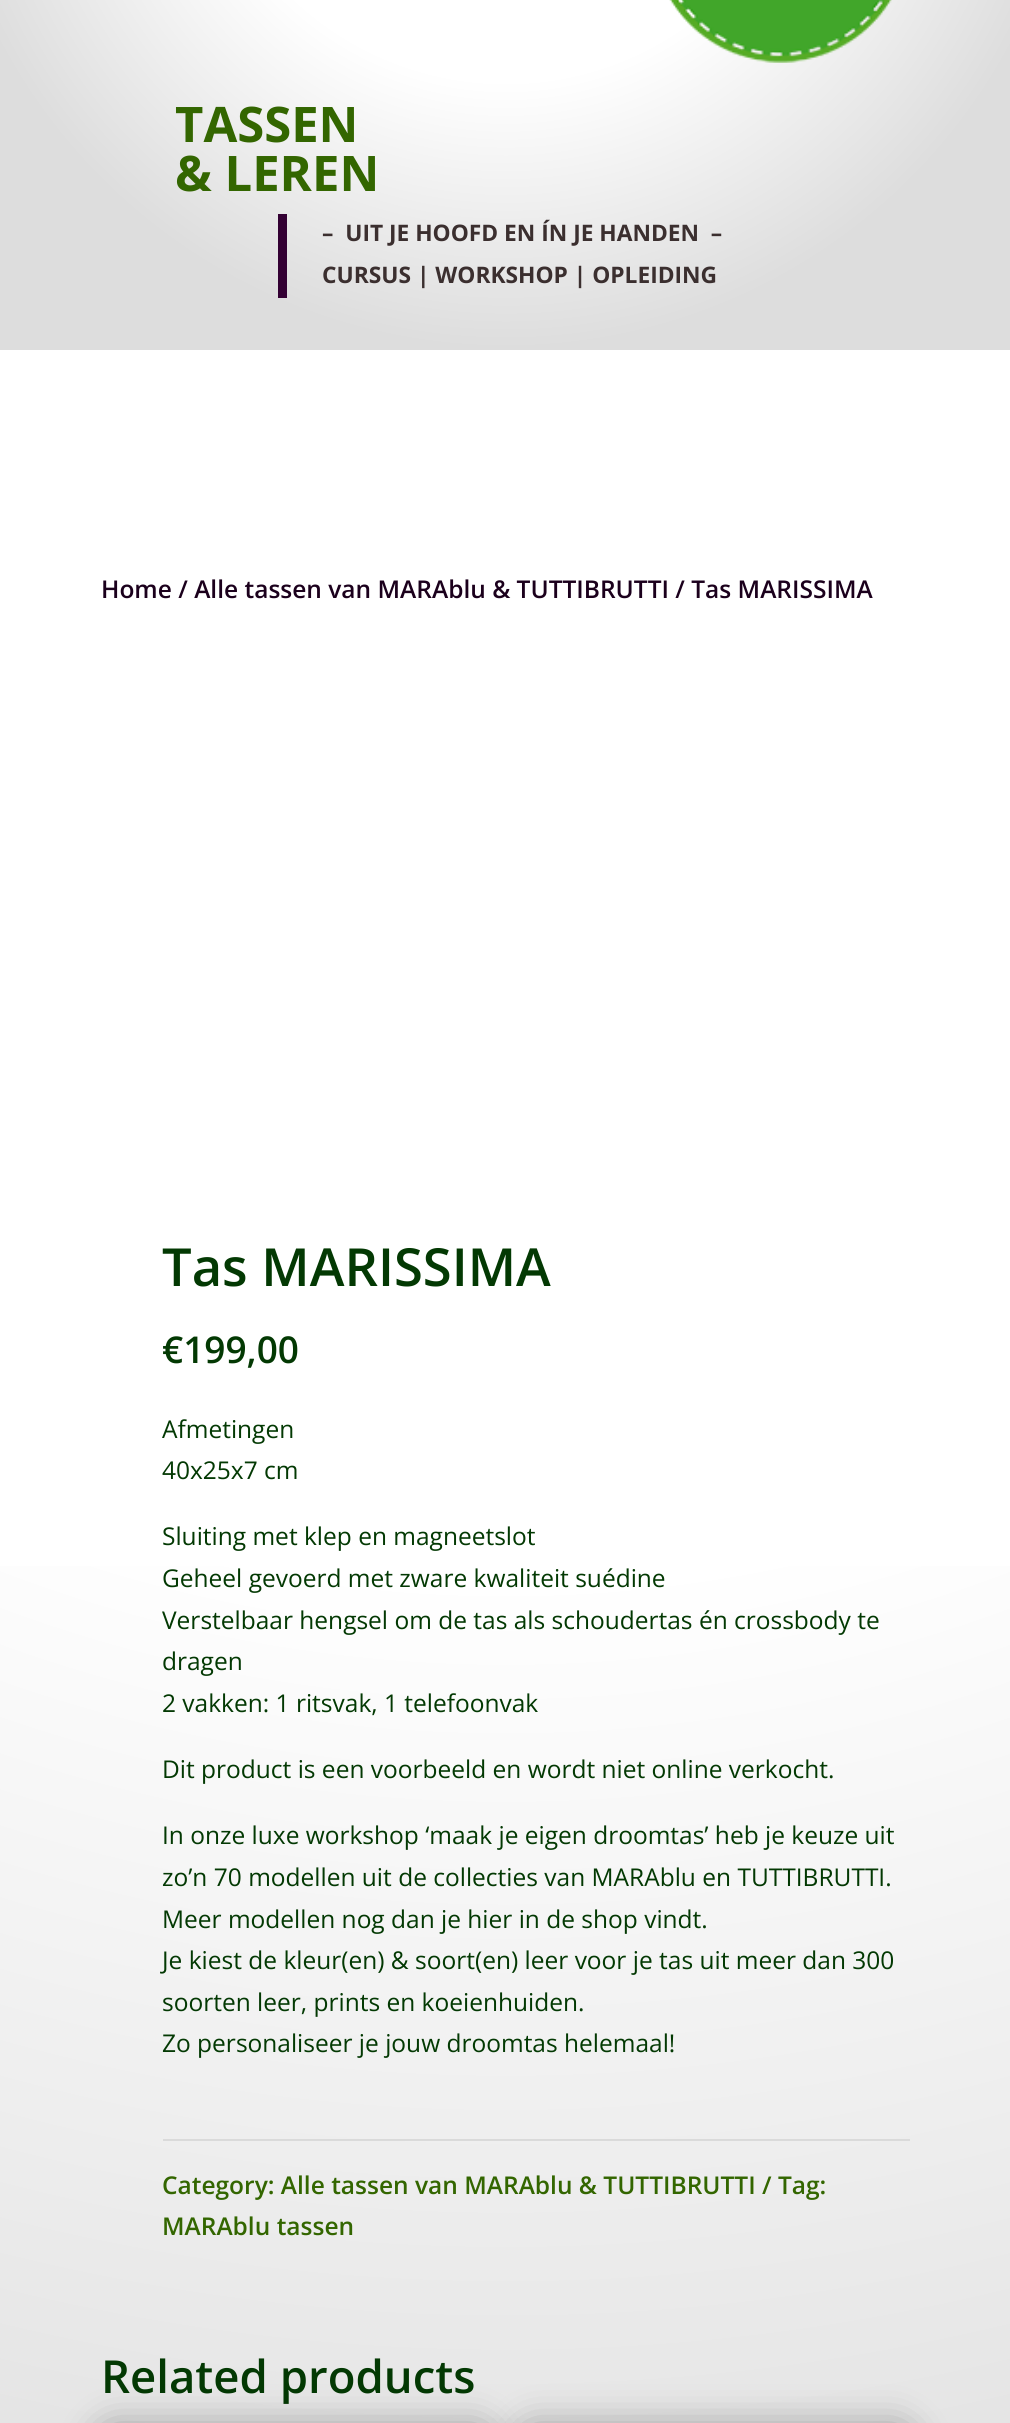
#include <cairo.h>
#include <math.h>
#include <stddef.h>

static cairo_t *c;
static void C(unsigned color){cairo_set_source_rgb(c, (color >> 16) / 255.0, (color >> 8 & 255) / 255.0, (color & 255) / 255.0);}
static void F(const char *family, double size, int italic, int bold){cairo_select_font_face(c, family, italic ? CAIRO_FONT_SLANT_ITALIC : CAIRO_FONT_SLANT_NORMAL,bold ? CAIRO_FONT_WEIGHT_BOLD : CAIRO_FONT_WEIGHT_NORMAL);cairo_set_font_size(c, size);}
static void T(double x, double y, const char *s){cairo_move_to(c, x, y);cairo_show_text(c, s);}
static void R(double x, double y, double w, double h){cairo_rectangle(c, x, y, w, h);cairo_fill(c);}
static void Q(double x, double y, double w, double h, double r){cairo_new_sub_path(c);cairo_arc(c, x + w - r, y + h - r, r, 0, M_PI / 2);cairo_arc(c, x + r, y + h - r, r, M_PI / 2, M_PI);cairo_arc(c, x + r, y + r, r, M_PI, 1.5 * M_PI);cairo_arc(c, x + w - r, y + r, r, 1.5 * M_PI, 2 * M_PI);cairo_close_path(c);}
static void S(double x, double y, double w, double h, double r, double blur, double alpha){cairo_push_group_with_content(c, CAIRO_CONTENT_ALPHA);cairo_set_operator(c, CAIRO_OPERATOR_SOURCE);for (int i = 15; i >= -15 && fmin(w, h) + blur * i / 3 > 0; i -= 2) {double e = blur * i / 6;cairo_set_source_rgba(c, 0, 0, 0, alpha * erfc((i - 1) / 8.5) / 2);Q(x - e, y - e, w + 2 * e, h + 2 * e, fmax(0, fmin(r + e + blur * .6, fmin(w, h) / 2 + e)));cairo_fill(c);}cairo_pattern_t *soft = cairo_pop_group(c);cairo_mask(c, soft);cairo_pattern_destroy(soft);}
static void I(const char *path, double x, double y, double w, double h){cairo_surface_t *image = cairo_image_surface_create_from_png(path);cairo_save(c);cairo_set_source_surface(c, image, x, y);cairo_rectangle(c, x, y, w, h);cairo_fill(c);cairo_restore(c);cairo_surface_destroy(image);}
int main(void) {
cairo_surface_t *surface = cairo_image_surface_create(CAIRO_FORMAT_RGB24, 1010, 2423);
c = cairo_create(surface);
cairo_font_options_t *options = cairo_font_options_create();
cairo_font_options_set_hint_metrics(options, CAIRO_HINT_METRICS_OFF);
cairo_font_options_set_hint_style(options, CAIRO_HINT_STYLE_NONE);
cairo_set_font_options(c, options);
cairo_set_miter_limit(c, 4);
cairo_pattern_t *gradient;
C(0xffffff);
cairo_paint(c);
gradient = cairo_pattern_create_radial(506,-226,0,506,-226,766);
cairo_pattern_add_color_stop_rgba(gradient,.4,1,1,1,1);
cairo_pattern_add_color_stop_rgba(gradient,.75,0.867,0.867,0.867,1);
cairo_set_source(c,gradient);
cairo_pattern_destroy(gradient);
R(0,0,1010,350);
I("1.png",669,0,223,63);
F("Open Sans",49,0,1);
C(0x336600);
T(175,142,"TASSEN");
T(175,191,"& LEREN");
C(0x330033);
R(278,214,9,84);
F("Open Sans",22.75,0,1);
C(0x3b2f2f);
T(322,241,"–  UIT JE HOOFD EN ÍN JE HANDEN  –");
T(322,283,"CURSUS | WORKSHOP | OPLEIDING");
gradient = cairo_pattern_create_radial(506,252,0,506,252,3318);
cairo_pattern_add_color_stop_rgba(gradient,.4,1,1,1,1);
cairo_pattern_add_color_stop_rgba(gradient,.75,0.867,0.867,0.867,1);
cairo_set_source(c,gradient);
cairo_pattern_destroy(gradient);
R(0,1566,1010,857);
F("Open Sans SemiBold",24.5,0,0);
C(0x1b001c);
T(101,598,"Home / Alle tassen van MARAblu & TUTTIBRUTTI / Tas MARISSIMA");
F("Open Sans SemiBold",52.5,0,0);
C(0x033903);
T(162,1286,"Tas MARISSIMA");
F("Open Sans SemiBold",37,0,0);
T(162,1363,"€199,00");
F("Open Sans",24.5,0,0);
T(162,1438,"Afmetingen");
T(162,1479,"40x25x7 cm");
T(162,1545,"Sluiting met klep en magneetslot");
T(162,1587,"Geheel gevoerd met zware kwaliteit suédine");
T(162,1629,"Verstelbaar hengsel om de tas als schoudertas én crossbody te");
T(162,1670,"dragen");
T(162,1712,"2 vakken: 1 ritsvak, 1 telefoonvak");
T(162,1778,"Dit product is een voorbeeld en wordt niet online verkocht.");
T(162,1844,"In onze luxe workshop ‘maak je eigen droomtas’ heb je keuze uit");
T(162,1886,"zo’n 70 modellen uit de collecties van MARAblu en TUTTIBRUTTI.");
T(162,1928,"Meer modellen nog dan je hier in de shop vindt.");
T(162,1969,"Je kiest de kleur(en) & soort(en) leer voor je tas uit meer dan 300");
T(162,2011,"soorten leer, prints en koeienhuiden.");
T(162,2052,"Zo personaliseer je jouw droomtas helemaal!");
C(0xdadada);
R(163,2139,747,2);
F("Open Sans SemiBold",24.5,0,0);
C(0x336600);
T(162,2194,"Category: Alle tassen van MARAblu & TUTTIBRUTTI / Tag:");
T(162,2235,"MARAblu tassen");
F("Open Sans SemiBold",45.5,0,0);
C(0x033903);
T(101,2393,"Related products");
C(0x000000);
S(96,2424,399,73,18,18.5,.3);
S(516,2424,399,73,18,18.5,.3);
cairo_surface_write_to_png(surface, "o.png");
cairo_font_options_destroy(options);
cairo_destroy(c);
cairo_surface_destroy(surface);
return 0;
}
